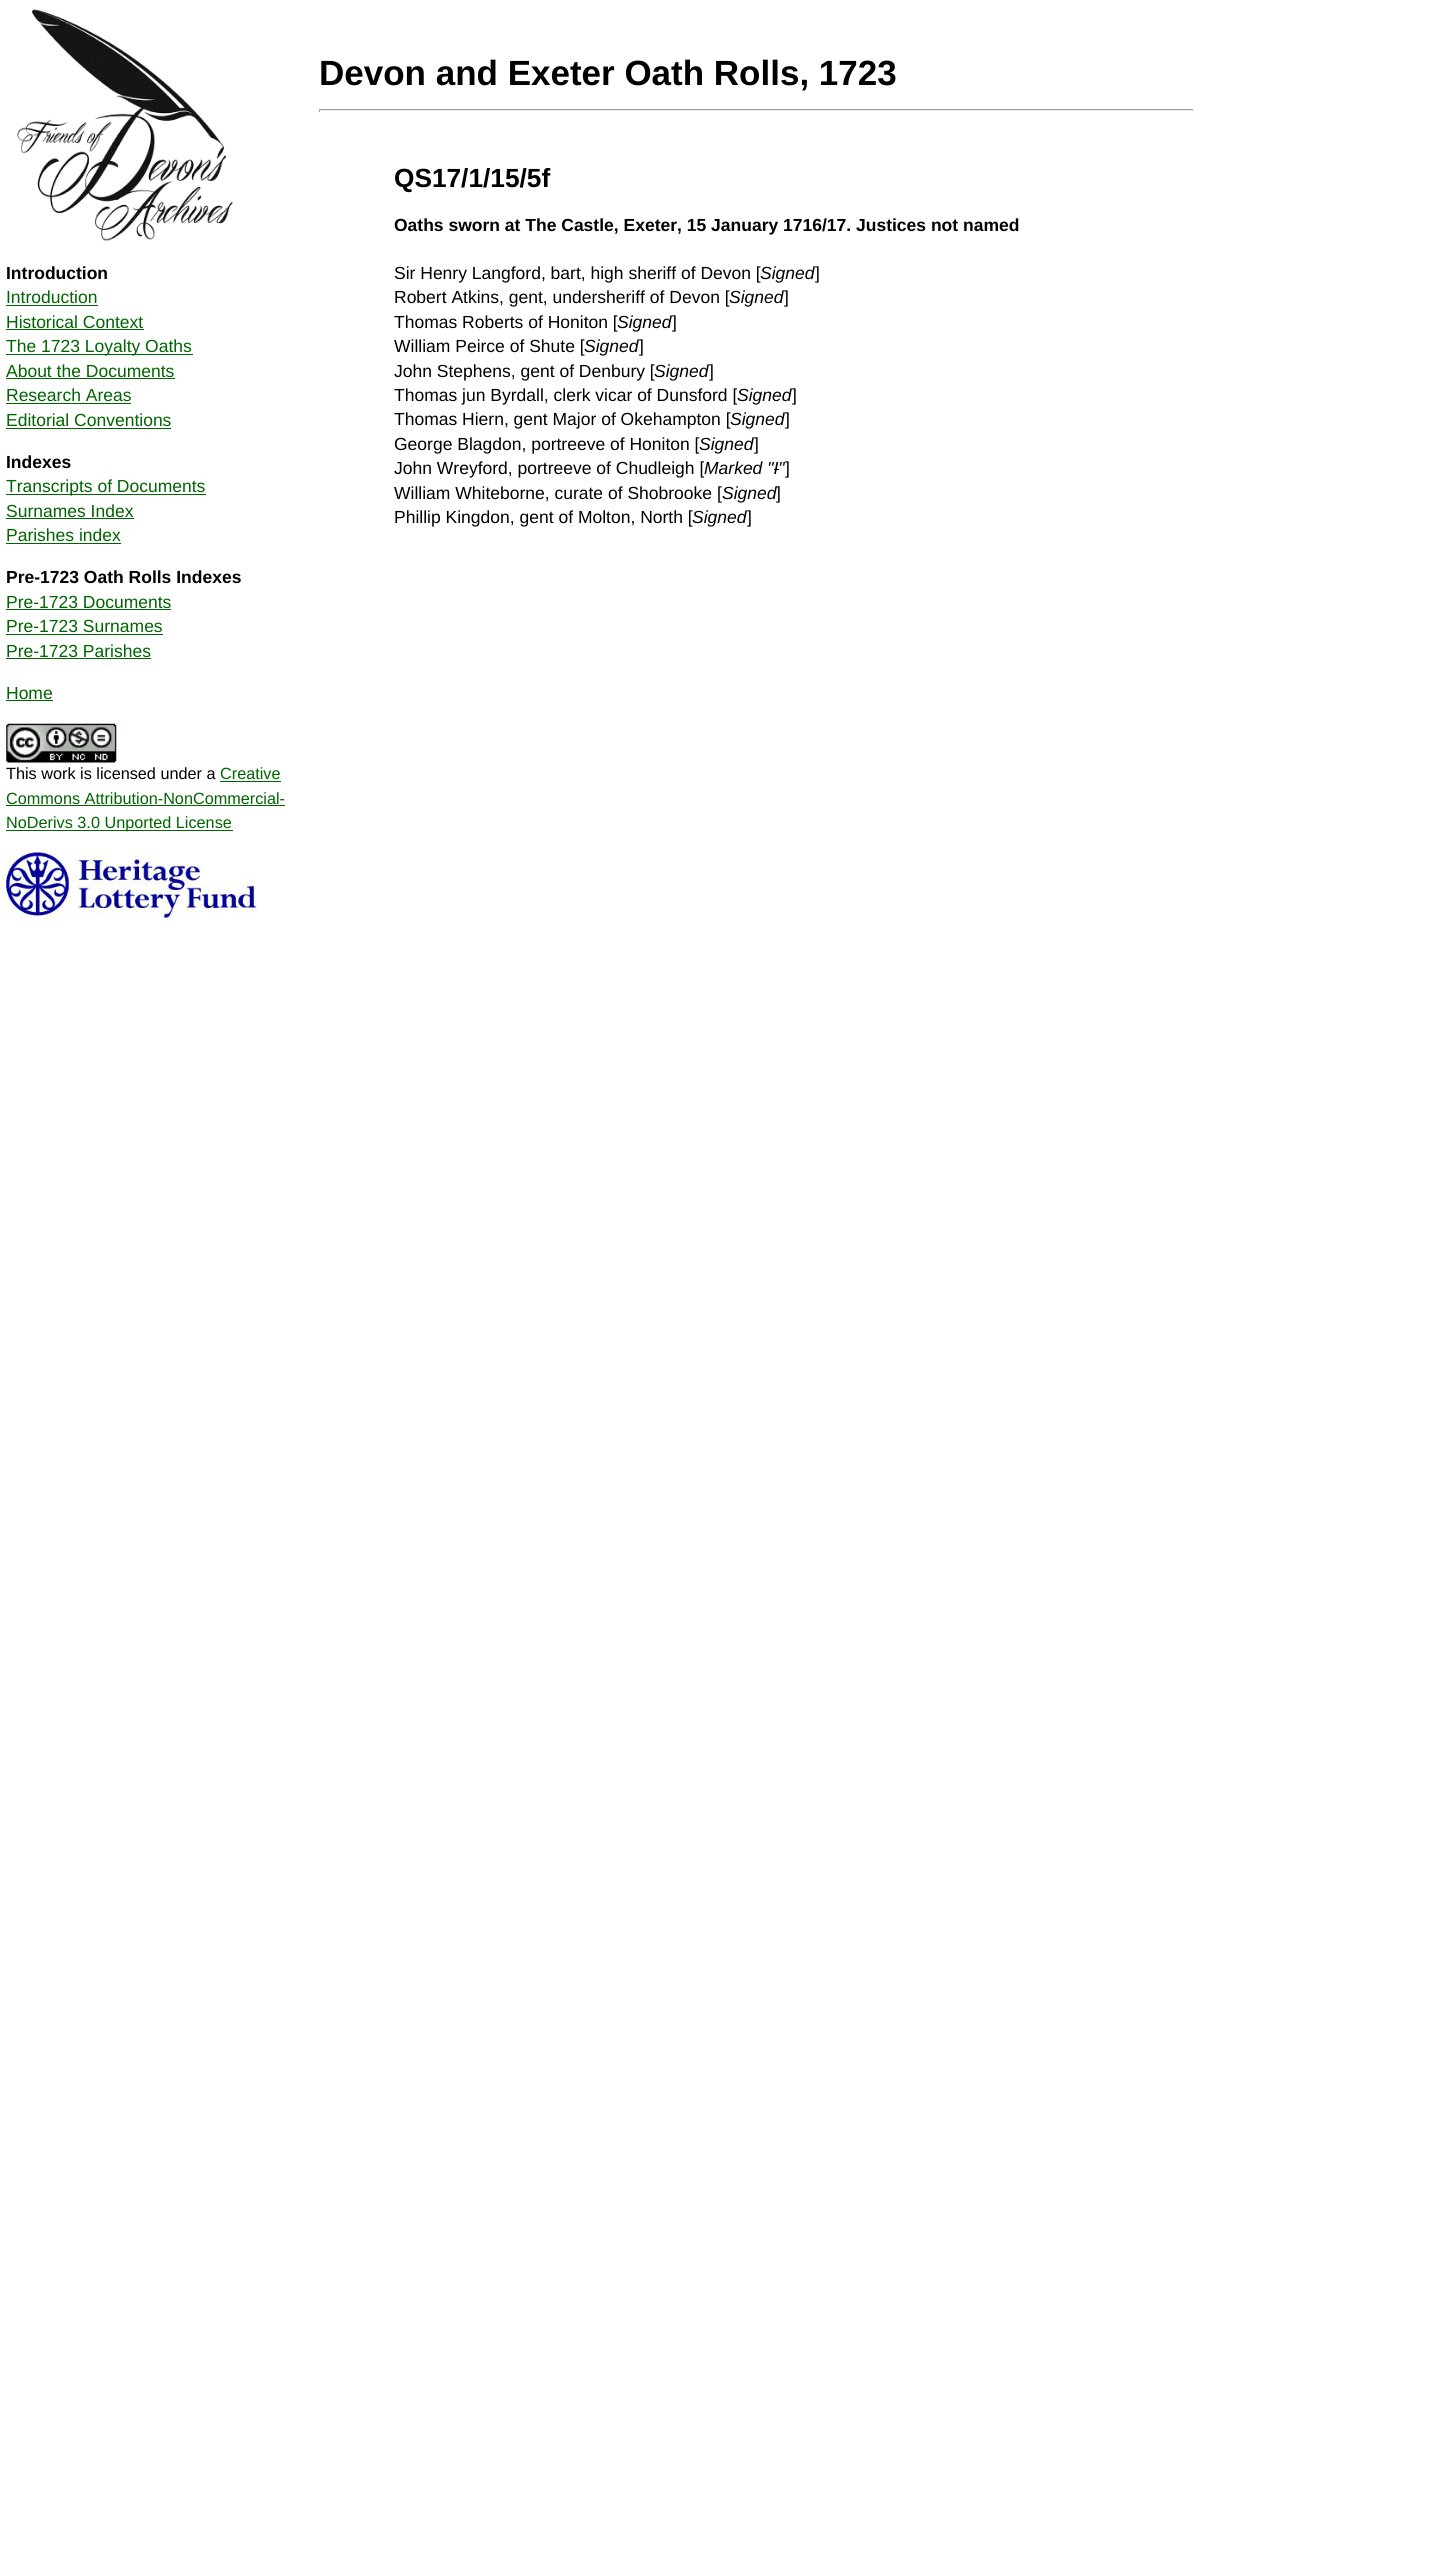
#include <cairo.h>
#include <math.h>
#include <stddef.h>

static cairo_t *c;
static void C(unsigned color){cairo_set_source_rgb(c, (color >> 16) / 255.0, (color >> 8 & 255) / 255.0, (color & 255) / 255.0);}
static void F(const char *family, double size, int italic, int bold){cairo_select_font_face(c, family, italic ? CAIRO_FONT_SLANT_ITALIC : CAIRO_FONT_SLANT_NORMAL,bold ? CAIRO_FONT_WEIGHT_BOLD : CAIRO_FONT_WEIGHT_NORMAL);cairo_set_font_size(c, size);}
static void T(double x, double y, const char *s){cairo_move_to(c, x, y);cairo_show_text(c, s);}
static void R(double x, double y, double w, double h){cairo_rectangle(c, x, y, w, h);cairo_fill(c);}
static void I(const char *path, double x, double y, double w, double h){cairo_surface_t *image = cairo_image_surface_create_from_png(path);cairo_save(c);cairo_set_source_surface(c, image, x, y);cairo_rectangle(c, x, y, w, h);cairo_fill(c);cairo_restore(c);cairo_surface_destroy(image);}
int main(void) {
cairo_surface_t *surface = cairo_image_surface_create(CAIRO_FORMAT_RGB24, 1444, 2571);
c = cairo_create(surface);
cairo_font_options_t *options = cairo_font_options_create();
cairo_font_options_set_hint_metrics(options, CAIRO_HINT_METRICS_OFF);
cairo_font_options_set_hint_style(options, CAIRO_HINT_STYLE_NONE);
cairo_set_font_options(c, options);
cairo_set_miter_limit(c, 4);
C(0xffffff);
cairo_paint(c);
F("Liberation Sans",35,0,1);
C(0x000000);
T(319,85,"Devon and Exeter Oath Rolls, 1723");
C(0x9f9f9f);
R(319,109,875,1);
C(0xeeeeee);
R(1193,109,1,3);
R(319,110,875,1);
C(0x9f9f9f);
R(319,109,1,3);
I("1.png",17,9,216,232);
F("Liberation Sans",17.5,0,1);
C(0x000000);
T(6,279,"Introduction");
F("Liberation Sans",17.5,0,0);
C(0x006400);
T(6,303,"Introduction");
R(6,305,92,1);
T(6,328,"Historical Context");
R(6,329,138,1);
R(6,354,187,1);
T(6,352,"The 1723 Loyalty Oaths");
T(6,377,"About the Documents");
R(6,378,169,1);
T(6,401,"Research Areas");
R(6,403,125,1);
T(6,426,"Editorial Conventions");
R(6,428,165,1);
F("Liberation Sans",17.5,0,1);
C(0x000000);
T(6,468,"Indexes");
C(0x006400);
R(6,494,200,1);
F("Liberation Sans",17.5,0,0);
T(6,492,"Transcripts of Documents");
T(6,517,"Surnames Index");
R(6,518,128,1);
T(6,541,"Parishes index");
R(6,543,115,1);
F("Liberation Sans",17.5,0,1);
C(0x000000);
T(6,583,"Pre-1723 Oath Rolls Indexes");
F("Liberation Sans",17.5,0,0);
C(0x006400);
T(6,608,"Pre-1723 Documents");
R(6,609,165,1);
T(6,632,"Pre-1723 Surnames");
R(6,634,157,1);
T(6,657,"Pre-1723 Parishes");
R(6,658,145,1);
T(6,699,"Home");
R(6,700,47,1);
I("2.png",6,723,111,40);
F("Liberation Sans",16.25,0,0);
C(0x000000);
T(6,779,"This work is licensed under a");
C(0x006400);
T(220,779,"Creative");
R(220,781,61,1);
T(6,804,"Commons Attribution-NonCommercial-");
R(6,805,279,1);
R(6,830,227,1);
T(6,828,"NoDerivs 3.0 Unported License");
I("3.png",6,852,251,66);
F("Liberation Sans",26.25,0,1);
C(0x000000);
T(394,187,"QS17/1/15/5f");
F("Liberation Sans",17.5,0,1);
T(394,231,"Oaths sworn at The Castle, Exeter, 15 January 1716/17. Justices not named");
F("Liberation Sans",17.5,0,0);
T(394,279,"Sir Henry Langford, bart, high sheriff of Devon [");
F("Liberation Sans",17.5,1,0);
T(760,279,"Signed");
F("Liberation Sans",17.5,0,0);
T(815,279,"]");
T(394,303,"Robert Atkins, gent, undersheriff of Devon [");
F("Liberation Sans",17.5,1,0);
T(729,303,"Signed");
F("Liberation Sans",17.5,0,0);
T(784,303,"]");
T(394,328,"Thomas Roberts of Honiton [");
F("Liberation Sans",17.5,1,0);
T(617,328,"Signed");
F("Liberation Sans",17.5,0,0);
T(672,328,"]");
T(394,352,"William Peirce of Shute [");
F("Liberation Sans",17.5,1,0);
T(584,352,"Signed");
F("Liberation Sans",17.5,0,0);
T(639,352,"]");
T(394,377,"John Stephens, gent of Denbury [");
F("Liberation Sans",17.5,1,0);
T(654,377,"Signed");
F("Liberation Sans",17.5,0,0);
T(709,377,"]");
T(394,401,"Thomas jun Byrdall, clerk vicar of Dunsford [");
F("Liberation Sans",17.5,1,0);
T(737,401,"Signed");
F("Liberation Sans",17.5,0,0);
T(792,401,"]");
T(394,425,"Thomas Hiern, gent Major of Okehampton [");
F("Liberation Sans",17.5,1,0);
T(730,425,"Signed");
F("Liberation Sans",17.5,0,0);
T(785,425,"]");
T(394,450,"George Blagdon, portreeve of Honiton [");
F("Liberation Sans",17.5,1,0);
T(699,450,"Signed");
F("Liberation Sans",17.5,0,0);
T(754,450,"]");
T(394,474,"John Wreyford, portreeve of Chudleigh [");
F("Liberation Sans",17.5,1,0);
T(704,474,"Marked \"I\"");
R(774,469,5,1);
F("Liberation Sans",17.5,0,0);
T(785,474,"]");
T(394,499,"William Whiteborne, curate of Shobrooke [");
F("Liberation Sans",17.5,1,0);
T(722,499,"Signed");
F("Liberation Sans",17.5,0,0);
T(776,499,"]");
T(394,523,"Phillip Kingdon, gent of Molton, North [");
F("Liberation Sans",17.5,1,0);
T(692,523,"Signed");
F("Liberation Sans",17.5,0,0);
T(747,523,"]");
cairo_surface_write_to_png(surface, "o.png");
cairo_font_options_destroy(options);
cairo_destroy(c);
cairo_surface_destroy(surface);
return 0;
}
